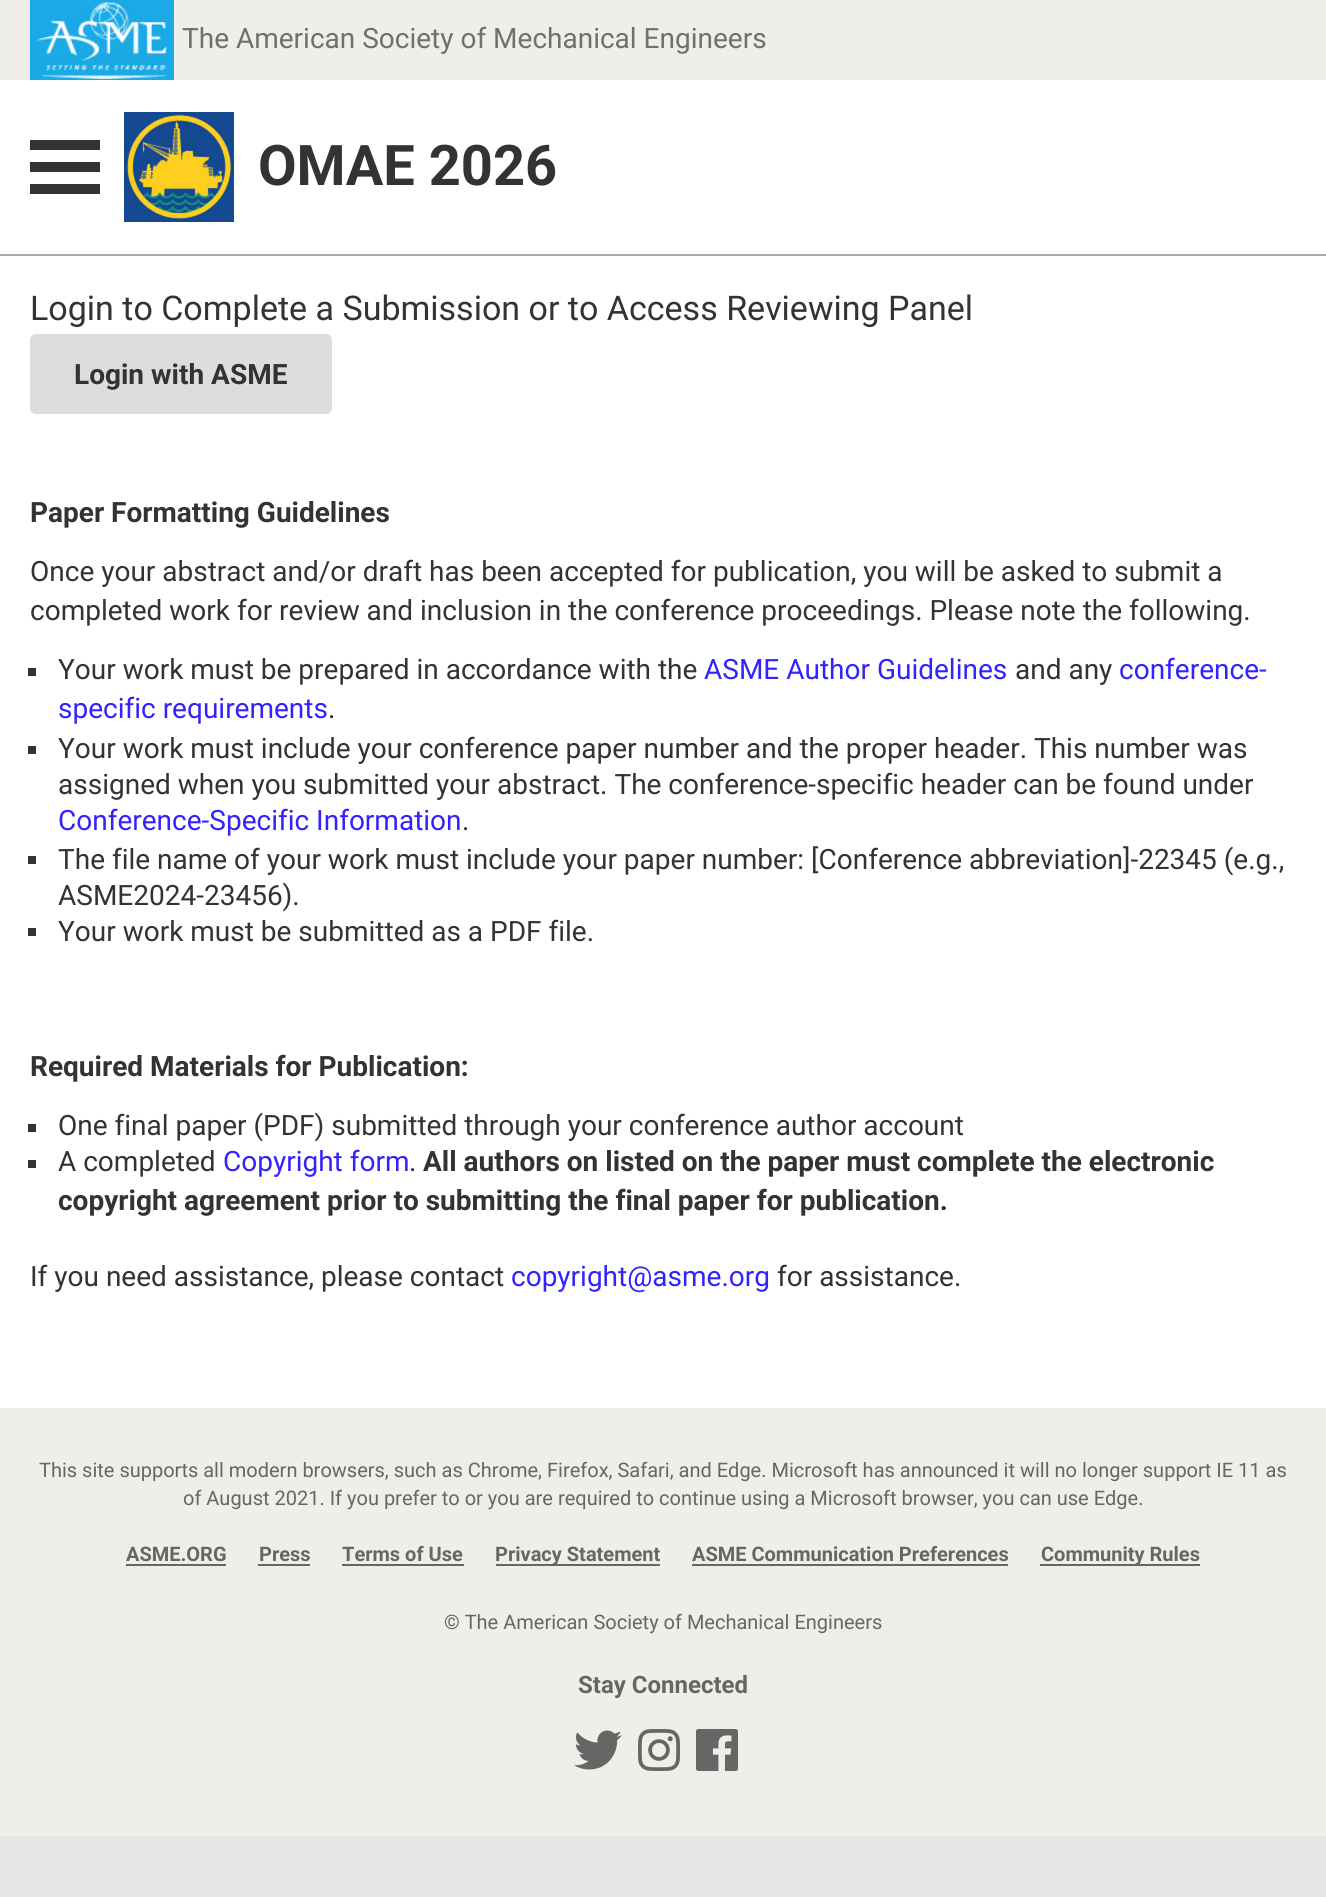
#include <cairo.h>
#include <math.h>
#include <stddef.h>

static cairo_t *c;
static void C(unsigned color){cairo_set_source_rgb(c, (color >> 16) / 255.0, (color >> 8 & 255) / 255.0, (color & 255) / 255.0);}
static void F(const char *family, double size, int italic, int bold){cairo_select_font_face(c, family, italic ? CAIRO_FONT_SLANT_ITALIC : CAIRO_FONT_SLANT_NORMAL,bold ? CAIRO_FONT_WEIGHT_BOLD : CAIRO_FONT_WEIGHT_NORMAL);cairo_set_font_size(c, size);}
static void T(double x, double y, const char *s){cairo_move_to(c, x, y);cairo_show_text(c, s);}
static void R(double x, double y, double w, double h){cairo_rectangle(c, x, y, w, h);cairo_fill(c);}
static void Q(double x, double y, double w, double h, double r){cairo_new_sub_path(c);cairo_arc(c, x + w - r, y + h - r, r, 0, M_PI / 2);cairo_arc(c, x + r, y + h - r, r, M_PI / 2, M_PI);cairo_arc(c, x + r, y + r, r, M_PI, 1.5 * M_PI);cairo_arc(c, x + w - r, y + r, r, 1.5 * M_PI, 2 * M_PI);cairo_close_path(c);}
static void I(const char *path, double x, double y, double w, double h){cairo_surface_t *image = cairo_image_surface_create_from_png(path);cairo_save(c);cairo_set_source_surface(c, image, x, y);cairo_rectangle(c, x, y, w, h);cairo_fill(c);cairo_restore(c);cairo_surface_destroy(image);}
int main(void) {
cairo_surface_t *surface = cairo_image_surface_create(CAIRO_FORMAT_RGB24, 1326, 1897);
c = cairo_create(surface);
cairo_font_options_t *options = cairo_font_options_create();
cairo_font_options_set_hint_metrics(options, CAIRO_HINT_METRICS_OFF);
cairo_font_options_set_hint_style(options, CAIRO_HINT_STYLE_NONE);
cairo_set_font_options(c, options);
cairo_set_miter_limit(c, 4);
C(0xe6e6e6);
cairo_paint(c);
C(0xffffff);
R(0,80,1326,1328);
C(0xf0eee8);
R(0,0,1326,80);
I("1.png",30,0,144,80);
F("Roboto",28,0,0);
C(0x707070);
T(182,48,"The American Society of Mechanical Engineers");
C(0xaaaaaa);
R(0,254,1326,2);
C(0x333333);
R(30,140,70,10);
R(30,162,70,10);
R(30,184,70,10);
I("2.png",124,112,110,110);
F("Roboto",56,0,1);
T(258,185,"OMAE 2026");
F("Roboto",34,0,0);
T(30,320,"Login to Complete a Submission or to Access Reviewing Panel");
C(0xdddddd);
Q(30,334,302,80,6);
cairo_fill(c);
F("Roboto",28,0,1);
C(0x333333);
T(74,384,"Login with ASME");
T(30,522,"Paper Formatting Guidelines");
F("Roboto",28,0,0);
T(30,581,"Once your abstract and/or draft has been accepted for publication, you will be asked to submit a");
T(30,620,"completed work for review and inclusion in the conference proceedings. Please note the following.");
R(28,668,8,8);
T(58,679,"Your work must be prepared in accordance with the");
C(0x3322ff);
T(704,679,"ASME Author Guidelines");
C(0x333333);
T(1015,679,"and any");
C(0x3322ff);
T(1119,679,"conference-");
T(58,718,"specific requirements");
C(0x333333);
T(328,718,".");
R(28,746,8,8);
T(58,758,"Your work must include your conference paper number and the proper header. This number was");
T(58,794,"assigned when you submitted your abstract. The conference-specific header can be found under");
C(0x3322ff);
T(58,830,"Conference-Specific Information");
C(0x333333);
T(462,830,".");
R(28,856,8,8);
T(58,869,"The file name of your work must include your paper number: [Conference abbreviation]-22345 (e.g.,");
T(58,905,"ASME2024-23456).");
R(28,928,8,8);
T(58,941,"Your work must be submitted as a PDF file.");
F("Roboto",28,0,1);
T(30,1076,"Required Materials for Publication:");
R(28,1124,8,8);
F("Roboto",28,0,0);
T(58,1135,"One final paper (PDF) submitted through your conference author account");
R(28,1160,8,8);
T(58,1171,"A completed");
C(0x3322ff);
T(223,1171,"Copyright form");
F("Roboto",28,0,1);
C(0x333333);
T(423,1171,"All authors on listed on the paper must complete the electronic");
F("Roboto",28,0,0);
T(409,1171,".");
F("Roboto",28,0,1);
T(58,1210,"copyright agreement prior to submitting the final paper for publication.");
F("Roboto",28,0,0);
T(30,1286,"If you need assistance, please contact");
C(0x3322ff);
T(511,1286,"copyright@asme.org");
C(0x333333);
T(777,1286,"for assistance.");
C(0xf0eee8);
R(0,1408,1326,428);
F("Roboto",20,0,0);
C(0x666666);
T(39,1477,"This site supports all modern browsers, such as Chrome, Firefox, Safari, and Edge. Microsoft has announced it will no longer support IE 11 as");
T(183,1505,"of August 2021. If you prefer to or you are required to continue using a Microsoft browser, you can use Edge.");
F("Roboto",20,0,1);
T(126,1561,"ASME.ORG");
R(126,1564,100,2);
T(259,1561,"Press");
R(258,1564,52,2);
T(342,1561,"Terms of Use");
R(342,1564,122,2);
R(496,1564,164,2);
T(495,1561,"Privacy Statement");
T(692,1561,"ASME Communication Preferences");
R(692,1564,316,2);
R(1040,1564,160,2);
T(1041,1561,"Community Rules");
F("Roboto",20,0,0);
T(444,1629,"© The American Society of Mechanical Engineers");
F("Roboto",24,0,1);
T(578,1693,"Stay Connected");
I("3.png",574,1730,48,40);
I("4.png",638,1729,42,42);
I("5.png",696,1729,42,42);
cairo_surface_write_to_png(surface, "o.png");
cairo_font_options_destroy(options);
cairo_destroy(c);
cairo_surface_destroy(surface);
return 0;
}
